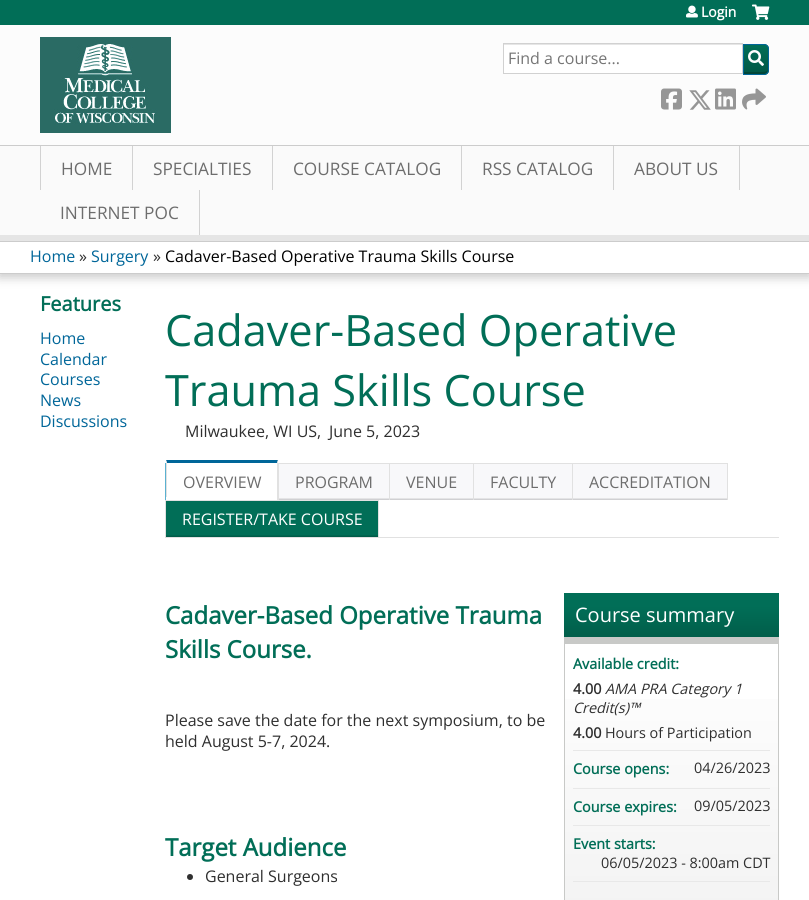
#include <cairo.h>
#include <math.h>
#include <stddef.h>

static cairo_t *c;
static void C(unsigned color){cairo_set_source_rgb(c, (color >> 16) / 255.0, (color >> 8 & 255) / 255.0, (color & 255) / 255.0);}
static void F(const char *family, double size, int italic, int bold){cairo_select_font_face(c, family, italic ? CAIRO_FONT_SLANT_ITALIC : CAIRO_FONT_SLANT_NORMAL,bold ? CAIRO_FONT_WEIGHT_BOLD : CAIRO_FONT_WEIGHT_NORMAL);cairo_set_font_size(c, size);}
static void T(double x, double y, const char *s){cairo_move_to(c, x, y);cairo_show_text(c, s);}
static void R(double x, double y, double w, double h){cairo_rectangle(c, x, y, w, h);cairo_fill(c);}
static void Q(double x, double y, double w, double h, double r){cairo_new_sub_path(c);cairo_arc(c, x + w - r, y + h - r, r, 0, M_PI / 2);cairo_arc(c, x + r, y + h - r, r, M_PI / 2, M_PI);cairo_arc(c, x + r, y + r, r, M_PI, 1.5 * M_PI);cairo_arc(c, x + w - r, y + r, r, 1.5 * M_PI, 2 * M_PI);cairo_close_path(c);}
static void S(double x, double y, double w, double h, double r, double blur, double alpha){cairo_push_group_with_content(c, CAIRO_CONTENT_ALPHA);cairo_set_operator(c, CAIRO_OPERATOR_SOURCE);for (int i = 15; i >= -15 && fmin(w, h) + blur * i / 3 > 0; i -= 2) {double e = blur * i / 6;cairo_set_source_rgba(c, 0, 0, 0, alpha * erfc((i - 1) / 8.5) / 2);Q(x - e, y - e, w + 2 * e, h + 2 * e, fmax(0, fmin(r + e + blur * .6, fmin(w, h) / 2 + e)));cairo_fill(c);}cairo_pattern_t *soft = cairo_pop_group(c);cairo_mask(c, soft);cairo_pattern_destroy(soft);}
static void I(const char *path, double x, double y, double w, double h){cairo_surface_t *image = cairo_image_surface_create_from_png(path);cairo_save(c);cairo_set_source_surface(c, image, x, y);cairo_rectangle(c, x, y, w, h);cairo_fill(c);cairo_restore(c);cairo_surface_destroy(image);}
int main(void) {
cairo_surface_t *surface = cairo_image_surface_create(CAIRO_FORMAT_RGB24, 809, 900);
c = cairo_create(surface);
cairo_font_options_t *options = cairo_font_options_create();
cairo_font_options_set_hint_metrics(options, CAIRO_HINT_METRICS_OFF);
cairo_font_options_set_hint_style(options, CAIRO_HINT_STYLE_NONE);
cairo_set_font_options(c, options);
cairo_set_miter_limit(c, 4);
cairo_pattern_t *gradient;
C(0xffffff);
cairo_paint(c);
C(0xfcfcfc);
R(0,25,809,120);
C(0x016e57);
R(0,0,809,25);
I("1.png",40,37,131,96);
I("2.png",686,5,12,13);
F("Open Sans",14,0,1);
C(0xffffff);
T(701,17,"Login");
I("3.png",752,4,18,16);
C(0x016e57);
cairo_new_path(c);
cairo_move_to(c,743,44);
cairo_line_to(c,764,44);
cairo_curve_to(c,767,44,769,46,769,49);
cairo_line_to(c,769,70);
cairo_curve_to(c,769,73,767,75,764,75);
cairo_line_to(c,743,75);
cairo_close_path(c);
cairo_fill(c);
cairo_save(c);
cairo_new_path(c);
cairo_move_to(c,743,44);
cairo_line_to(c,764,44);
cairo_curve_to(c,767,44,769,46,769,49);
cairo_line_to(c,769,70);
cairo_curve_to(c,769,73,767,75,764,75);
cairo_line_to(c,743,75);
cairo_close_path(c);
cairo_clip(c);
gradient = cairo_pattern_create_linear(756,74,756,45);
cairo_pattern_add_color_stop_rgba(gradient,0,0,0,0,.2);
cairo_pattern_add_color_stop_rgba(gradient,1,0,0,0,0);
cairo_set_source(c,gradient);
cairo_pattern_destroy(gradient);
R(744,48,25,26);
cairo_restore(c);
C(0x014738);
cairo_new_path(c);
cairo_move_to(c,744,72);
cairo_line_to(c,744,74);
cairo_line_to(c,764,74);
cairo_curve_to(c,766,74,768,72,768,70);
cairo_curve_to(c,767,71.5,764.5,72,761,72);
cairo_close_path(c);
cairo_fill(c);
cairo_new_path(c);
cairo_move_to(c,743.5,44.5);
cairo_line_to(c,764,44.5);
cairo_curve_to(c,766.5,44.5,768.5,46.5,768.5,49);
cairo_line_to(c,768.5,70);
cairo_curve_to(c,768.5,72.5,766.5,74.5,764,74.5);
cairo_line_to(c,743.5,74.5);
cairo_close_path(c);
C(0x006699);
cairo_set_line_width(c,1);
cairo_stroke(c);
C(0xffffff);
R(504,45,238,28);
C(0xe6e6e6);
R(504,44,238,1);
cairo_rectangle(c,503.5,43.5,239,30);
C(0xd1d1d1);
cairo_stroke(c);
F("Open Sans",16,0,0);
C(0x757575);
T(508,64,"Find a course...");
I("4.png",748,50,16,16);
I("5.png",661,88,21,22);
I("6.png",689,90,22,20);
I("7.png",715,88,21,22);
I("8.png",742,88,24,22);
C(0x000000);
S(-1,243,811,35,0,5,.2);
C(0xfafafa);
R(0,146,809,89);
C(0xcccccc);
R(0,145,809,1);
C(0xe5e5e5);
R(0,235,809,6);
C(0xd2d2d2);
R(132,146,1,44);
R(40,146,1,44);
F("Open Sans",17.25,0,0);
C(0x6d6d6d);
T(61,175,"HOME");
C(0xd2d2d2);
R(272,146,1,44);
C(0x6d6d6d);
T(153,175,"SPECIALTIES");
C(0xd2d2d2);
R(461,146,1,44);
C(0x6d6d6d);
T(293,175,"COURSE CATALOG");
C(0xd2d2d2);
R(613,146,1,44);
C(0x6d6d6d);
T(482,175,"RSS CATALOG");
C(0xd2d2d2);
R(739,146,1,44);
C(0x6d6d6d);
T(634,175,"ABOUT US");
C(0xd2d2d2);
R(199,190,1,45);
C(0x6d6d6d);
T(60,219,"INTERNET POC");
C(0xffffff);
R(0,242,809,31);
C(0xcccccc);
R(0,241,809,1);
R(0,273,809,1);
F("Open Sans",16,0,0);
C(0x006699);
T(30,262,"Home");
C(0x2f2f2f);
T(79,262,"»");
C(0x006699);
T(91,262,"Surgery");
C(0x2f2f2f);
T(153,262,"»");
C(0x000000);
T(165,262,"Cadaver-Based Operative Trauma Skills Course");
F("Open Sans",20,0,1);
C(0x016e57);
T(40,311,"Features");
F("Open Sans",16,0,0);
C(0x006699);
T(40,344,"Home");
T(40,365,"Calendar");
T(40,385,"Courses");
T(40,406,"News");
T(40,427,"Discussions");
F("Open Sans",43.25,0,0);
C(0x016e57);
T(165,346,"Cadaver-Based Operative");
T(165,406,"Trauma Skills Course");
F("Open Sans",16,0,0);
C(0x2f2f2f);
T(185,437,"Milwaukee, WI US,");
T(329,437,"June 5, 2023");
C(0xe1e1e1);
R(165,537,614,1);
C(0x5ab1d0);
R(165,463,1,37);
C(0x006699);
cairo_new_path(c);
cairo_move_to(c,166,460);
cairo_line_to(c,278,460);
cairo_line_to(c,277,463);
cairo_line_to(c,167,463);
cairo_close_path(c);
cairo_fill(c);
C(0xe1e1e1);
cairo_new_path(c);
cairo_move_to(c,278,460);
cairo_line_to(c,278,500);
cairo_line_to(c,277,500);
cairo_line_to(c,277,463);
cairo_close_path(c);
cairo_fill(c);
cairo_new_path(c);
cairo_move_to(c,166,500);
cairo_line_to(c,166,460);
cairo_line_to(c,167,463);
cairo_line_to(c,167,500);
cairo_close_path(c);
cairo_fill(c);
C(0x6d6d6d);
T(183,488,"OVERVIEW");
C(0xffffff);
R(166,497,1,3);
gradient = cairo_pattern_create_linear(334,500,334,464);
cairo_pattern_add_color_stop_rgba(gradient,0,0.776,0.776,0.784,1);
cairo_pattern_add_color_stop_rgba(gradient,.07,0.973,0.973,0.98,1);
cairo_set_source(c,gradient);
cairo_pattern_destroy(gradient);
R(279,464,110,36);
C(0xe1e1e1);
R(278,463,112,1);
R(389,463,1,37);
R(278,463,1,37);
C(0x6d6d6d);
T(295,488,"PROGRAM");
gradient = cairo_pattern_create_linear(432,500,432,464);
cairo_pattern_add_color_stop_rgba(gradient,0,0.776,0.776,0.784,1);
cairo_pattern_add_color_stop_rgba(gradient,.07,0.973,0.973,0.98,1);
cairo_set_source(c,gradient);
cairo_pattern_destroy(gradient);
R(390,464,83,36);
C(0xe1e1e1);
R(389,463,85,1);
R(473,463,1,37);
C(0x6d6d6d);
T(406,488,"VENUE");
gradient = cairo_pattern_create_linear(523,500,523,464);
cairo_pattern_add_color_stop_rgba(gradient,0,0.776,0.776,0.784,1);
cairo_pattern_add_color_stop_rgba(gradient,.07,0.973,0.973,0.98,1);
cairo_set_source(c,gradient);
cairo_pattern_destroy(gradient);
R(474,464,98,36);
C(0xe1e1e1);
R(473,463,100,1);
R(572,463,1,37);
C(0x6d6d6d);
T(490,488,"FACULTY");
gradient = cairo_pattern_create_linear(650,500,650,464);
cairo_pattern_add_color_stop_rgba(gradient,0,0.776,0.776,0.784,1);
cairo_pattern_add_color_stop_rgba(gradient,.07,0.973,0.973,0.98,1);
cairo_set_source(c,gradient);
cairo_pattern_destroy(gradient);
R(573,464,154,36);
C(0xe1e1e1);
R(572,463,156,1);
R(727,463,1,37);
C(0x6d6d6d);
T(589,488,"ACCREDITATION");
gradient = cairo_pattern_create_linear(272,537,272,501);
cairo_pattern_add_color_stop_rgba(gradient,0,0.004,0.345,0.275,1);
cairo_pattern_add_color_stop_rgba(gradient,.07,0.004,0.431,0.341,1);
cairo_set_source(c,gradient);
cairo_pattern_destroy(gradient);
R(166,501,212,36);
C(0xe1e1e1);
R(165,500,214,1);
R(378,500,1,37);
R(165,500,1,37);
C(0xffffff);
T(182,525,"REGISTER/TAKE COURSE");
F("Open Sans",24,0,1);
C(0x016e57);
T(165,624,"Cadaver-Based Operative Trauma");
T(165,658,"Skills Course.");
F("Open Sans",16,0,0);
C(0x2f2f2f);
T(165,726,"Please save the date for the next symposium, to be");
T(165,747,"held August 5-7, 2024.");
F("Open Sans",24,0,1);
C(0x016e57);
T(165,856,"Target Audience");
C(0x2f2f2f);
cairo_new_path(c);
cairo_arc(c,190,877,3,0,2 * M_PI);
cairo_fill(c);
F("Open Sans",16,0,0);
T(205,882,"General Surgeons");
gradient = cairo_pattern_create_linear(672,637,672,593);
cairo_pattern_add_color_stop_rgba(gradient,0,0.004,0.369,0.29,1);
cairo_pattern_add_color_stop_rgba(gradient,.7,0.004,0.431,0.341,1);
cairo_set_source(c,gradient);
cairo_pattern_destroy(gradient);
R(564,593,215,44);
F("Open Sans",20,0,0);
C(0xffffff);
T(575,622,"Course summary");
gradient = cairo_pattern_create_linear(672,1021,672,644);
cairo_pattern_add_color_stop_rgba(gradient,0,0.933,0.933,0.933,1);
cairo_pattern_add_color_stop_rgba(gradient,1,1,1,1,1);
cairo_set_source(c,gradient);
cairo_pattern_destroy(gradient);
R(565,699,213,201);
C(0xc8c9c7);
R(564,637,215,7);
R(778,637,1,263);
R(564,637,1,263);
C(0xe8e8e8);
R(573,750,197,1);
F("Open Sans",14.4,0,1);
C(0x016e57);
T(573,669,"Available credit:");
C(0x2f2f2f);
T(573,694,"4.00");
F("Open Sans",14.4,1,0);
T(605,694,"AMA PRA Category 1");
T(573,713,"Credit(s)™");
F("Open Sans",14.4,0,1);
T(573,738,"4.00");
F("Open Sans",14.4,0,0);
T(605,738,"Hours of Participation");
C(0xe8e8e8);
R(573,788,197,1);
F("Open Sans",14.4,0,1);
C(0x016e57);
T(573,774,"Course opens:");
F("Open Sans",14.4,0,0);
C(0x2f2f2f);
T(694,773,"04/26/2023");
C(0xe8e8e8);
R(573,825,197,1);
F("Open Sans",14.4,0,1);
C(0x016e57);
T(573,812,"Course expires:");
F("Open Sans",14.4,0,0);
C(0x2f2f2f);
T(694,811,"09/05/2023");
C(0xe8e8e8);
R(573,881,197,1);
F("Open Sans",14.4,0,1);
C(0x016e57);
T(573,849,"Event starts:");
F("Open Sans",14.4,0,0);
C(0x2f2f2f);
T(601,868,"06/05/2023 - 8:00am CDT");
cairo_surface_write_to_png(surface, "o.png");
cairo_font_options_destroy(options);
cairo_destroy(c);
cairo_surface_destroy(surface);
return 0;
}
